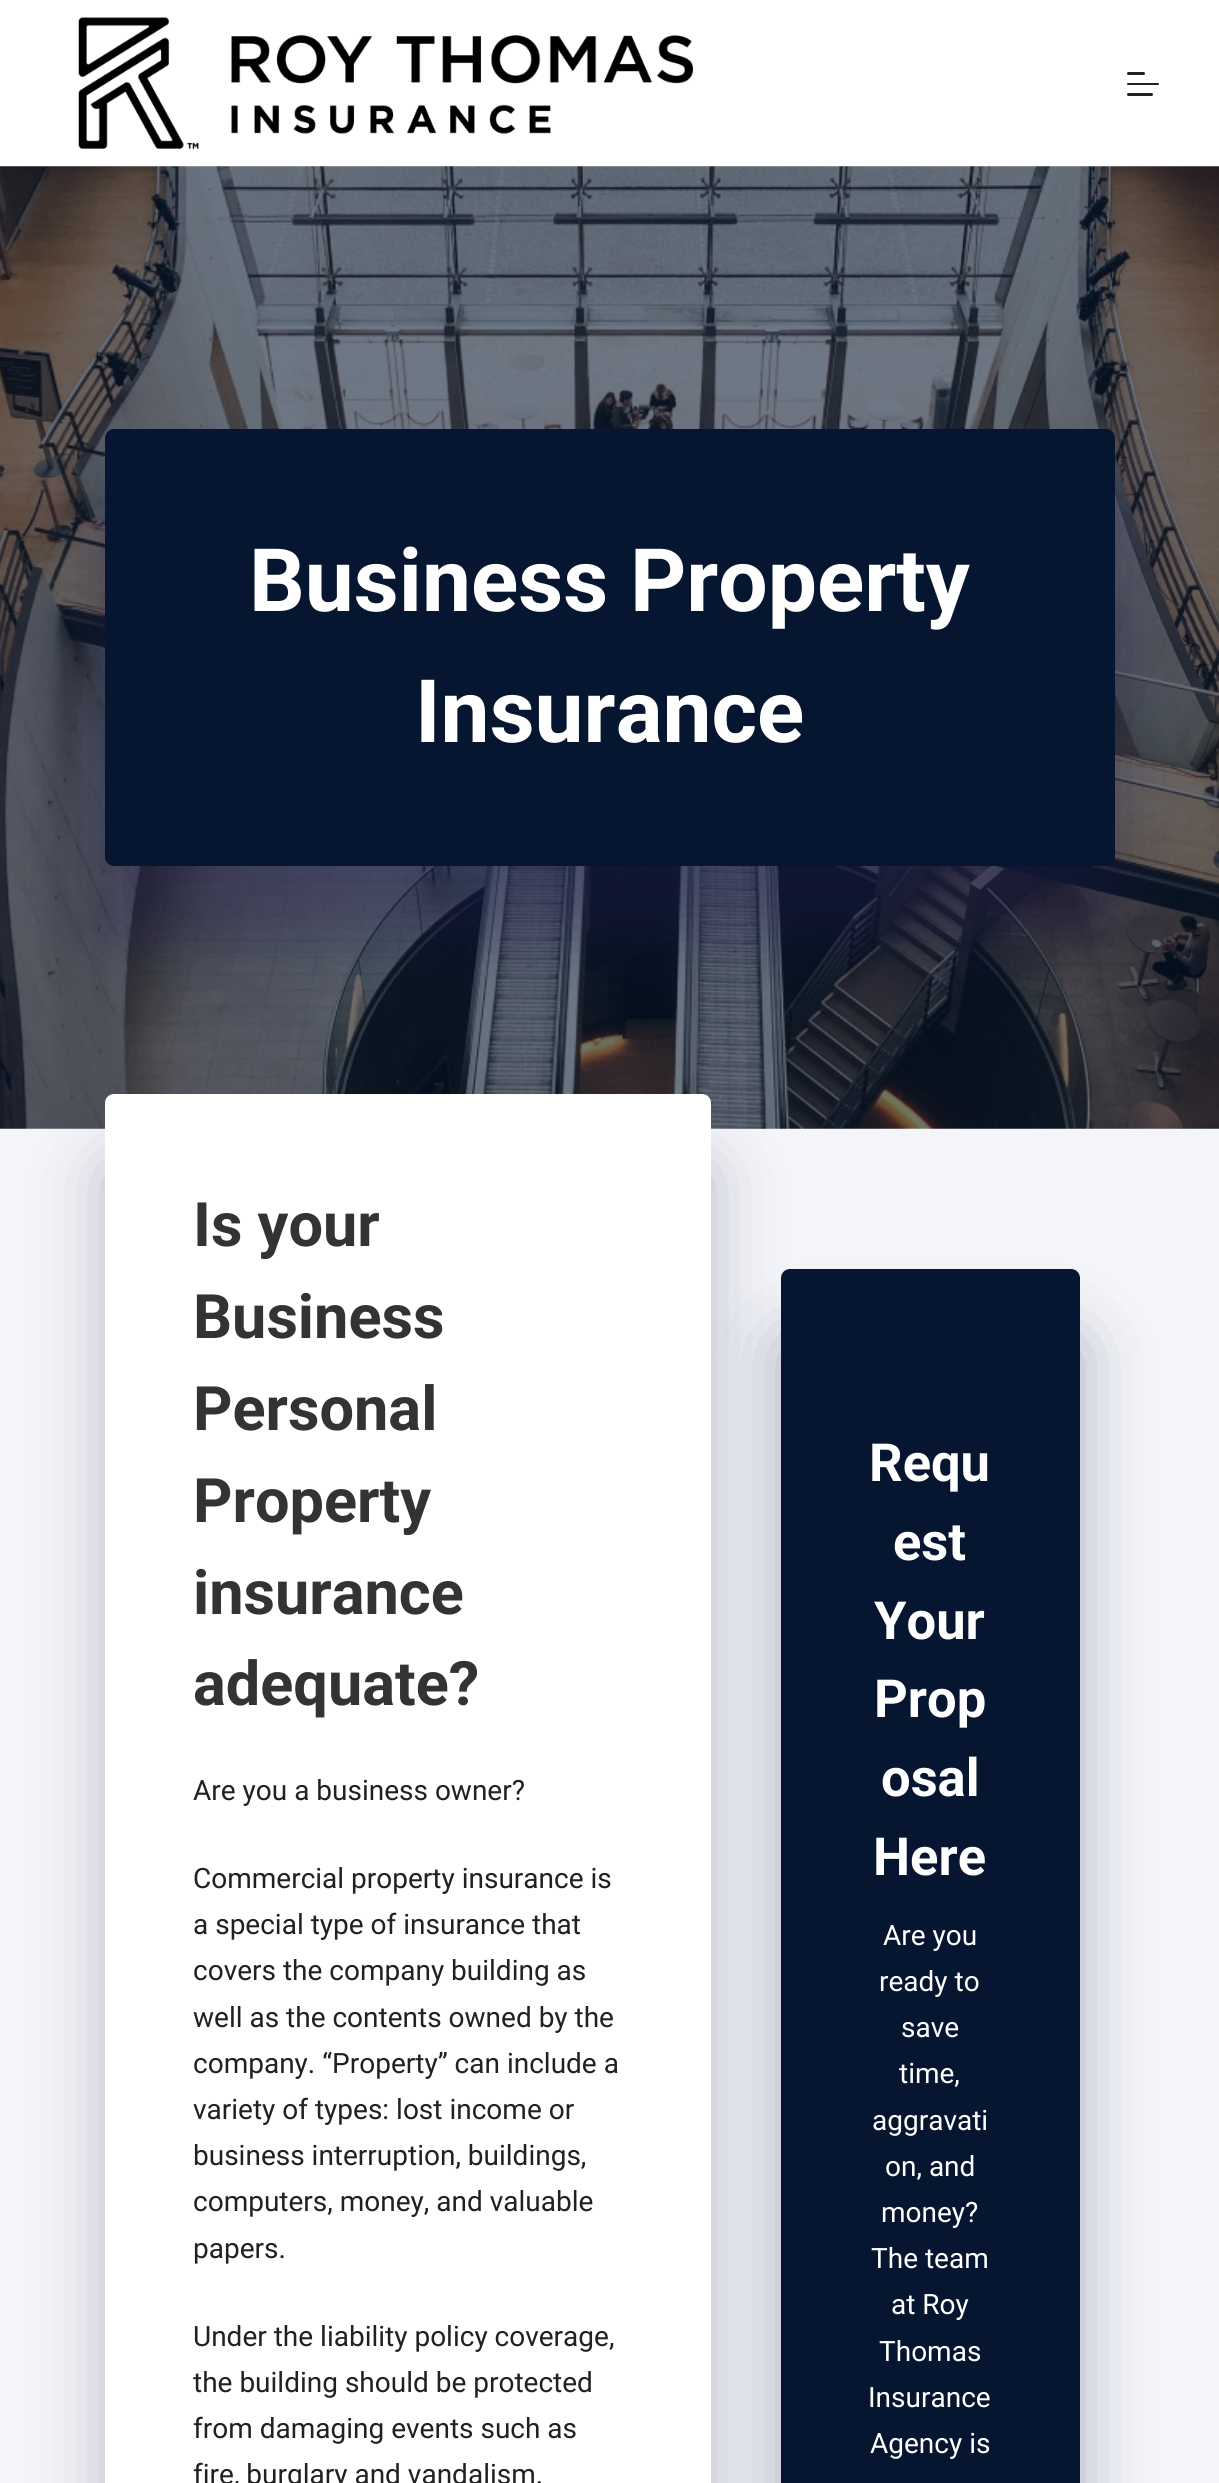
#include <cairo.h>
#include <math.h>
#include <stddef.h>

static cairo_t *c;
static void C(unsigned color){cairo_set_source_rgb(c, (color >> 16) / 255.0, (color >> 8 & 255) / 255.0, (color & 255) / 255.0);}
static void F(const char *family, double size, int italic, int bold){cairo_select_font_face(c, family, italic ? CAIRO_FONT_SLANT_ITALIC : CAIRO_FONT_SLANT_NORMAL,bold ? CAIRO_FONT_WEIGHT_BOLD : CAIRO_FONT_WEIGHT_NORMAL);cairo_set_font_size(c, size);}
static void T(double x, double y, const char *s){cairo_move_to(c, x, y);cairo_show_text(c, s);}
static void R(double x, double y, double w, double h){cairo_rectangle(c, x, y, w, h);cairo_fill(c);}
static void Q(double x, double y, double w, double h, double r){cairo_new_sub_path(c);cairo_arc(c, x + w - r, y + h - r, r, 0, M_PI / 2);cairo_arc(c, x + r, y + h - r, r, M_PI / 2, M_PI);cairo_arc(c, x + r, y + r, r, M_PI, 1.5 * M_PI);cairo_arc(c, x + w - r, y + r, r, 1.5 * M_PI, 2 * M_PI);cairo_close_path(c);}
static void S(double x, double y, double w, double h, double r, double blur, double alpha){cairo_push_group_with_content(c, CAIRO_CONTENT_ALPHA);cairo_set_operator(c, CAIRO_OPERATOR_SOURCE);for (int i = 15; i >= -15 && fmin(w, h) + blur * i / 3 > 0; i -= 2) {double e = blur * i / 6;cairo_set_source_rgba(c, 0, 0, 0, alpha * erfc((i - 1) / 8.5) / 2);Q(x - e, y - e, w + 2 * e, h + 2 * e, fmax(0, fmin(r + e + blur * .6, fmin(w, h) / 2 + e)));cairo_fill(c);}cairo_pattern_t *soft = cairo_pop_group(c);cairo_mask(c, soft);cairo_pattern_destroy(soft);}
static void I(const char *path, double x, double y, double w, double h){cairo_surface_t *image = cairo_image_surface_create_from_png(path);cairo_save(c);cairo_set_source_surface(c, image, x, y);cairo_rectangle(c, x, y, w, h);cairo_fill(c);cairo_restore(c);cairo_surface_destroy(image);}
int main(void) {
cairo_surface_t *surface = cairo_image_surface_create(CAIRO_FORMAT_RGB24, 1219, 2483);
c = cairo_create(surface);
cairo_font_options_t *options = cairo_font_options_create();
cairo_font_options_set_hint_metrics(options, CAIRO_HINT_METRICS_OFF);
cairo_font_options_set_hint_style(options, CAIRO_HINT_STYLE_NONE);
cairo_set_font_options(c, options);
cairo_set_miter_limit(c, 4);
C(0xffffff);
cairo_paint(c);
I("1.png",78,17,615,132);
C(0x212121);
Q(1127,72,18,3,1.5);
cairo_fill(c);
Q(1127,83,32,2,1);
cairo_fill(c);
Q(1127,93,26,3,1.5);
cairo_fill(c);
I("2.png",0,166,1219,963);
C(0x1c1949);
S(105,499,1010,437,9,35,.43);
C(0x071630);
Q(105,429,1010,437,9);
cairo_fill(c);
F("Roboto",87.5,0,1);
C(0xffffff);
T(249,611,"Business Property");
T(415,742,"Insurance");
C(0xf3f5f9);
R(0,1129,1219,1354);
C(0x1c1949);
S(105,1164,606,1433,9,35,.27);
C(0xffffff);
Q(105,1094,606,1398,9);
cairo_fill(c);
F("Roboto",61.25,0,1);
C(0x333333);
T(193,1246,"Is your");
T(193,1338,"Business");
T(193,1430,"Personal");
T(193,1522,"Property");
T(193,1614,"insurance");
T(193,1705,"adequate?");
F("Roboto",28,0,0);
C(0x212121);
T(193,1800,"Are you a business owner?");
T(193,1888,"Commercial property insurance is");
T(193,1934,"a special type of insurance that");
T(193,1980,"covers the company building as");
T(193,2027,"well as the contents owned by the");
T(193,2073,"company. “Property” can include a");
T(193,2119,"variety of types: lost income or");
T(193,2165,"business interruption, buildings,");
T(193,2211,"computers, money, and valuable");
T(193,2258,"papers.");
T(193,2346,"Under the liability policy coverage,");
T(193,2392,"the building should be protected");
T(193,2438,"from damaging events such as");
T(193,2484,"fire, burglary and vandalism.");
C(0x1c1949);
S(781,1339,299,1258,9,35,.33);
C(0x071630);
Q(781,1269,299,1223,9);
cairo_fill(c);
F("Roboto",52.5,0,1);
C(0xffffff);
T(869,1481,"Requ");
T(893,1560,"est");
T(874,1639,"Your");
T(874,1717,"Prop");
T(881,1796,"osal");
T(873,1875,"Here");
F("Roboto",28,0,0);
T(883,1945,"Are you");
T(879,1991,"ready to");
T(901,2037,"save");
T(899,2083,"time,");
T(872,2130,"aggravati");
T(885,2176,"on, and");
T(881,2222,"money?");
T(871,2268,"The team");
T(891,2314,"at Roy");
T(879,2361,"Thomas");
T(868,2407,"Insurance");
T(870,2453,"Agency is");
cairo_surface_write_to_png(surface, "o.png");
cairo_font_options_destroy(options);
cairo_destroy(c);
cairo_surface_destroy(surface);
return 0;
}
